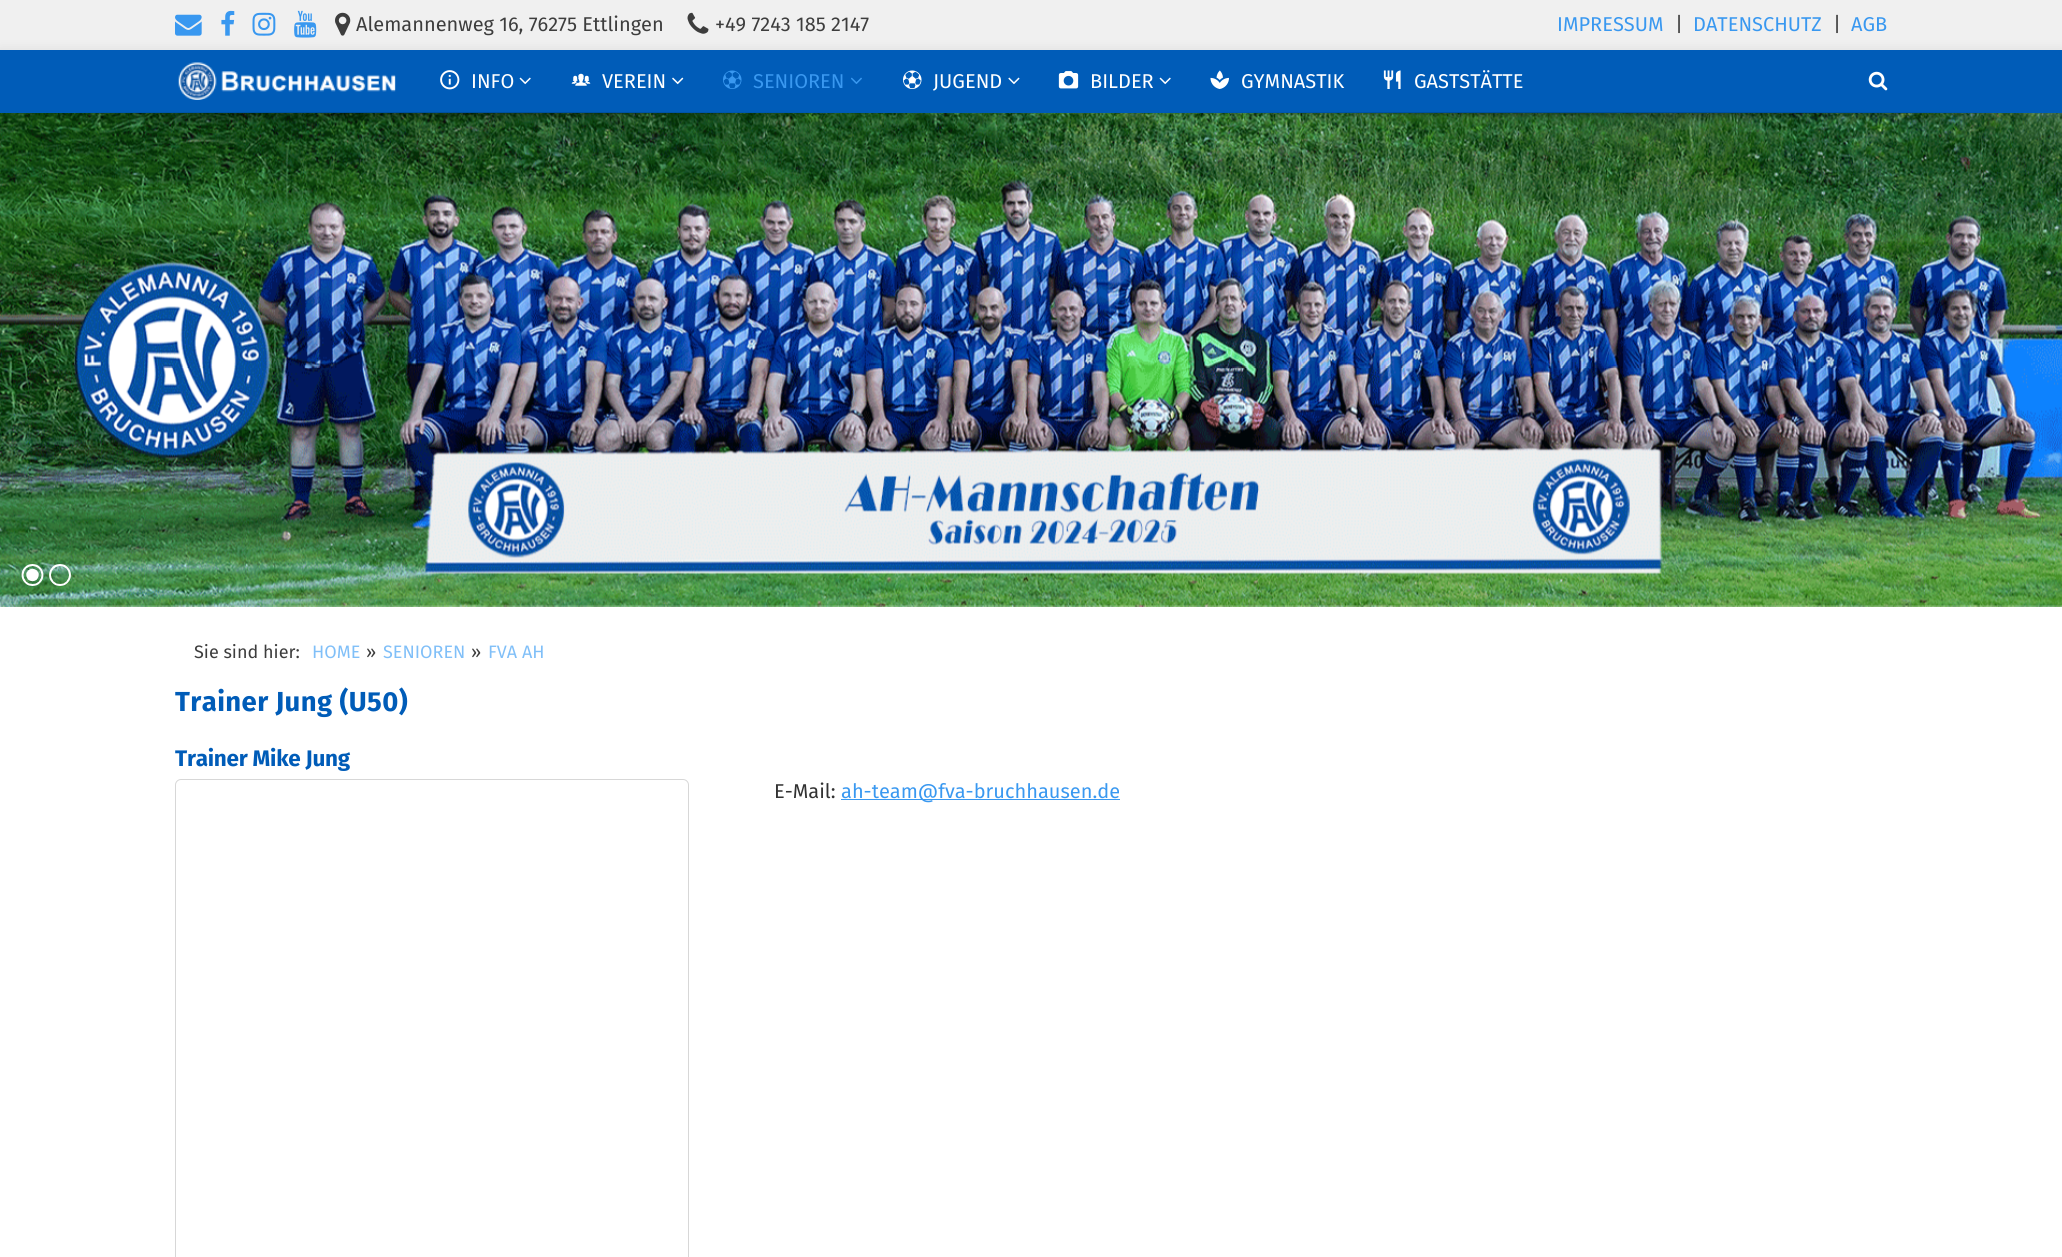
#include <cairo.h>
#include <math.h>
#include <stddef.h>

static cairo_t *c;
static void C(unsigned color){cairo_set_source_rgb(c, (color >> 16) / 255.0, (color >> 8 & 255) / 255.0, (color & 255) / 255.0);}
static void F(const char *family, double size, int italic, int bold){cairo_select_font_face(c, family, italic ? CAIRO_FONT_SLANT_ITALIC : CAIRO_FONT_SLANT_NORMAL,bold ? CAIRO_FONT_WEIGHT_BOLD : CAIRO_FONT_WEIGHT_NORMAL);cairo_set_font_size(c, size);}
static void T(double x, double y, const char *s){cairo_move_to(c, x, y);cairo_show_text(c, s);}
static void L(double x, double y, const char *s, double letter, double word){cairo_move_to(c, x, y);while (*s) {char ch[5] = {0};int n = 0;do ch[n++] = *s++; while ((*s & 0xC0) == 0x80);cairo_show_text(c, ch);cairo_rel_move_to(c, letter + word * (*ch == ' '), 0);}}
static void R(double x, double y, double w, double h){cairo_rectangle(c, x, y, w, h);cairo_fill(c);}
static void Q(double x, double y, double w, double h, double r){cairo_new_sub_path(c);cairo_arc(c, x + w - r, y + h - r, r, 0, M_PI / 2);cairo_arc(c, x + r, y + h - r, r, M_PI / 2, M_PI);cairo_arc(c, x + r, y + r, r, M_PI, 1.5 * M_PI);cairo_arc(c, x + w - r, y + r, r, 1.5 * M_PI, 2 * M_PI);cairo_close_path(c);}
static void S(double x, double y, double w, double h, double r, double blur, double alpha){cairo_push_group_with_content(c, CAIRO_CONTENT_ALPHA);cairo_set_operator(c, CAIRO_OPERATOR_SOURCE);for (int i = 15; i >= -15 && fmin(w, h) + blur * i / 3 > 0; i -= 2) {double e = blur * i / 6;cairo_set_source_rgba(c, 0, 0, 0, alpha * erfc((i - 1) / 8.5) / 2);Q(x - e, y - e, w + 2 * e, h + 2 * e, fmax(0, fmin(r + e + blur * .6, fmin(w, h) / 2 + e)));cairo_fill(c);}cairo_pattern_t *soft = cairo_pop_group(c);cairo_mask(c, soft);cairo_pattern_destroy(soft);}
static void I(const char *path, double x, double y, double w, double h){cairo_surface_t *image = cairo_image_surface_create_from_png(path);cairo_save(c);cairo_set_source_surface(c, image, x, y);cairo_rectangle(c, x, y, w, h);cairo_fill(c);cairo_restore(c);cairo_surface_destroy(image);}
int main(void) {
cairo_surface_t *surface = cairo_image_surface_create(CAIRO_FORMAT_RGB24, 2062, 1257);
c = cairo_create(surface);
cairo_font_options_t *options = cairo_font_options_create();
cairo_font_options_set_hint_metrics(options, CAIRO_HINT_METRICS_OFF);
cairo_font_options_set_hint_style(options, CAIRO_HINT_STYLE_NONE);
cairo_set_font_options(c, options);
cairo_set_miter_limit(c, 4);
C(0xffffff);
cairo_paint(c);
C(0xf0f0f0);
R(0,0,2062,50);
I("1.png",175,14,27,22);
I("2.png",221,10,14,26);
I("3.png",252,12,24,24);
I("4.png",294,10,23,28);
I("5.png",335,12,16,24);
F("Fira Sans",20,0,0);
C(0x3d3d3d);
T(356,31,"Alemannenweg 16, 76275 Ettlingen");
I("6.png",687,12,22,22);
T(715,31,"+49 7243 185 2147");
C(0x3998f0);
T(1557,31,"IMPRESSUM");
C(0x3d3d3d);
T(1675,31,"|");
C(0x3998f0);
T(1693,31,"DATENSCHUTZ");
C(0x3d3d3d);
T(1833,31,"|");
C(0x3998f0);
T(1851,31,"AGB");
I("21.png",0,113,2062,494);
C(0x000000);
S(0,51,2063,63,0,6,.1);
C(0x005cb8);
R(0,50,2062,63);
I("7.png",178,62,218,38);
I("8.png",440,70,20,20);
C(0xffffff);
T(471,88,"INFO");
I("9.png",519,77,12,8);
I("10.png",571,73,20,13);
T(602,88,"VEREIN");
I("11.png",672,77,12,8);
I("12.png",723,70,19,19);
C(0x3998f0);
T(753,88,"SENIOREN");
I("13.png",851,77,11,7);
I("14.png",903,70,19,19);
C(0xffffff);
T(933,88,"JUGEND");
I("15.png",1008,77,12,8);
I("16.png",1058,71,21,18);
T(1090,88,"BILDER");
I("9.png",1159,77,12,8);
I("17.png",1210,70,19,19);
T(1241,88,"GYMNASTIK");
I("18.png",1383,70,18,19);
T(1414,88,"GASTSTÄTTE");
I("19.png",1868,71,20,20);
I("20.png",75,112,1918,11);
I("22.png",21,564,23,22);
I("23.png",49,564,22,22);
F("Fira Sans",18,0,0);
C(0x3d3d3d);
T(194,658,"Sie sind hier:");
C(0x80bff8);
T(312,658,"HOME");
C(0x3d3d3d);
T(366,658,"»");
C(0x80bff8);
T(383,658,"SENIOREN");
C(0x3d3d3d);
T(471,658,"»");
C(0x80bff8);
T(488,658,"FVA AH");
F("Fira Sans",27.5,0,1);
C(0x005cb8);
L(175,711,"Trainer Jung (U50)",.4,0);
F("Fira Sans",22.5,0,1);
L(175,766,"Trainer Mike Jung",-.25,0);
Q(175.5,779.5,513,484,5.5);
C(0xd7d7d7);
cairo_set_line_width(c,1);
cairo_stroke(c);
F("Fira Sans",20,0,0);
C(0x323232);
T(774,798,"E-Mail:");
C(0x3998f0);
R(841,799,279,1);
T(841,798,"ah-team@fva-bruchhausen.de");
cairo_surface_write_to_png(surface, "o.png");
cairo_font_options_destroy(options);
cairo_destroy(c);
cairo_surface_destroy(surface);
return 0;
}
